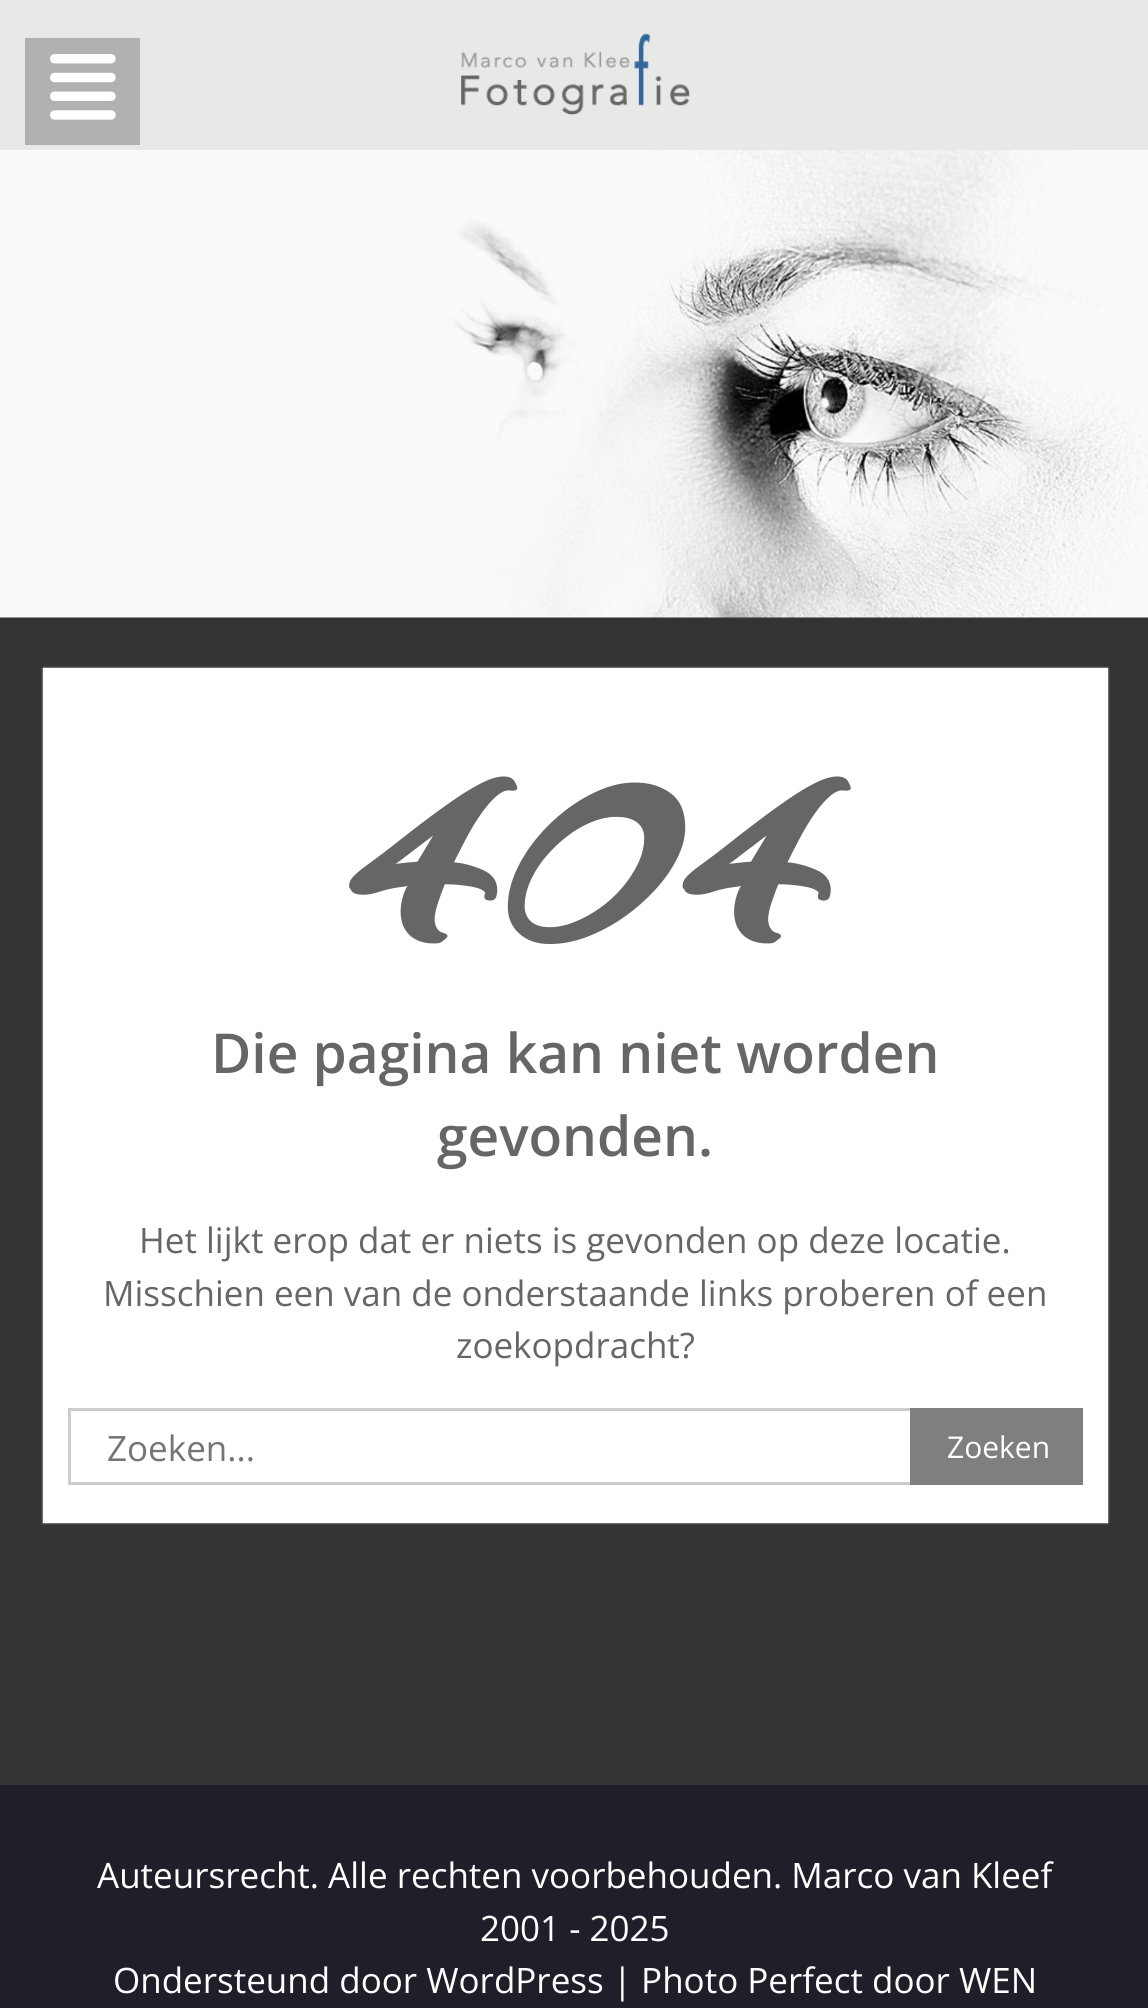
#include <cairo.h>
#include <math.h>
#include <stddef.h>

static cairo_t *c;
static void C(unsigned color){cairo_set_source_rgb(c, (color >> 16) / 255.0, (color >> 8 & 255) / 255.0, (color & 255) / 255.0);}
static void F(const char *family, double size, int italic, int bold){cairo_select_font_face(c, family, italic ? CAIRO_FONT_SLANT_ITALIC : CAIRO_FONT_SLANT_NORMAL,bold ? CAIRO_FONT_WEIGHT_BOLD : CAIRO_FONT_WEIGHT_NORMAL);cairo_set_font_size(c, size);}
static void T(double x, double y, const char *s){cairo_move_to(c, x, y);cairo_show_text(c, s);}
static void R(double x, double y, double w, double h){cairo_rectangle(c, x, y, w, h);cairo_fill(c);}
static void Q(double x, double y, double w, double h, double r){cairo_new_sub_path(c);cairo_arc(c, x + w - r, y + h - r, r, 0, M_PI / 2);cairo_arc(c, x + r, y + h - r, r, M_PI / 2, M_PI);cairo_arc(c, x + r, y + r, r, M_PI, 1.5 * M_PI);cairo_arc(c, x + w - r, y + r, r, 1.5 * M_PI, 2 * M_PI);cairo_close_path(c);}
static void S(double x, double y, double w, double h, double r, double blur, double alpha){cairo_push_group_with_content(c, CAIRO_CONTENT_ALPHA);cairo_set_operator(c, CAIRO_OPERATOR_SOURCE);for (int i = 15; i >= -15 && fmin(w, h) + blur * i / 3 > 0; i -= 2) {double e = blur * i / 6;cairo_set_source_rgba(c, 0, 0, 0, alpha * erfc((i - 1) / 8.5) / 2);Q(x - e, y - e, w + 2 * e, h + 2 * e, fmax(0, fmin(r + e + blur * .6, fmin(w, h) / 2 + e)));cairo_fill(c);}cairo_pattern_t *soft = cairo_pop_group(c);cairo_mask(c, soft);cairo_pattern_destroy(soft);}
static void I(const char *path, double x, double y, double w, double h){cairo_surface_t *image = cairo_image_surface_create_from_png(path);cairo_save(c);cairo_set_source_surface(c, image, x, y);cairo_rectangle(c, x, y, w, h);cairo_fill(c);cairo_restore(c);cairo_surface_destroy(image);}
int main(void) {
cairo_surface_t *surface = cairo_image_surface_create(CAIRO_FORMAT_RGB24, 1148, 2008);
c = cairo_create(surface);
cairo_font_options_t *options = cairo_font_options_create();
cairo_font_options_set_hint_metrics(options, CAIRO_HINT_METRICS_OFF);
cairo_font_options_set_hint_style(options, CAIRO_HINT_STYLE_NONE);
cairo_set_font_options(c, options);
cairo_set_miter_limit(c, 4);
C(0x333333);
cairo_paint(c);
C(0xe8e8e8);
R(0,0,1148,150);
C(0xb1b1b1);
R(25,38,115,107);
I("1.png",50,54,66,66);
I("2.png",461,33,229,83);
I("3.png",0,150,1148,468);
C(0xdddddd);
S(43,668,1065,855,0,1,1);
C(0xffffff);
R(43,668,1065,855);
F("Arizonia",318,0,1);
C(0x666666);
T(330,938,"404");
F("Open Sans SemiBold",55,0,0);
T(211,1073,"Die pagina kan niet worden");
T(437,1156,"gevonden.");
F("Open Sans",35,0,0);
T(139,1253,"Het lijkt erop dat er niets is gevonden op deze locatie.");
T(103,1306,"Misschien een van de onderstaande links proberen of een");
T(456,1358,"zoekopdracht?");
cairo_rectangle(c,69.5,1409.5,1012,74);
C(0xcccccc);
cairo_set_line_width(c,3);
cairo_stroke(c);
C(0x757575);
T(107,1461,"Zoeken...");
C(0x7f7f7f);
R(910,1408,173,77);
F("Open Sans",30,0,0);
C(0xffffff);
T(947,1458,"Zoeken");
C(0x1f1f29);
R(0,1785,1148,223);
F("Open Sans",35,0,0);
C(0xffffff);
T(97,1888,"Auteursrecht. Alle rechten voorbehouden. Marco van Kleef");
T(480,1941,"2001 - 2025");
T(113,1993,"Ondersteund door WordPress | Photo Perfect door WEN");
cairo_surface_write_to_png(surface, "o.png");
cairo_font_options_destroy(options);
cairo_destroy(c);
cairo_surface_destroy(surface);
return 0;
}
